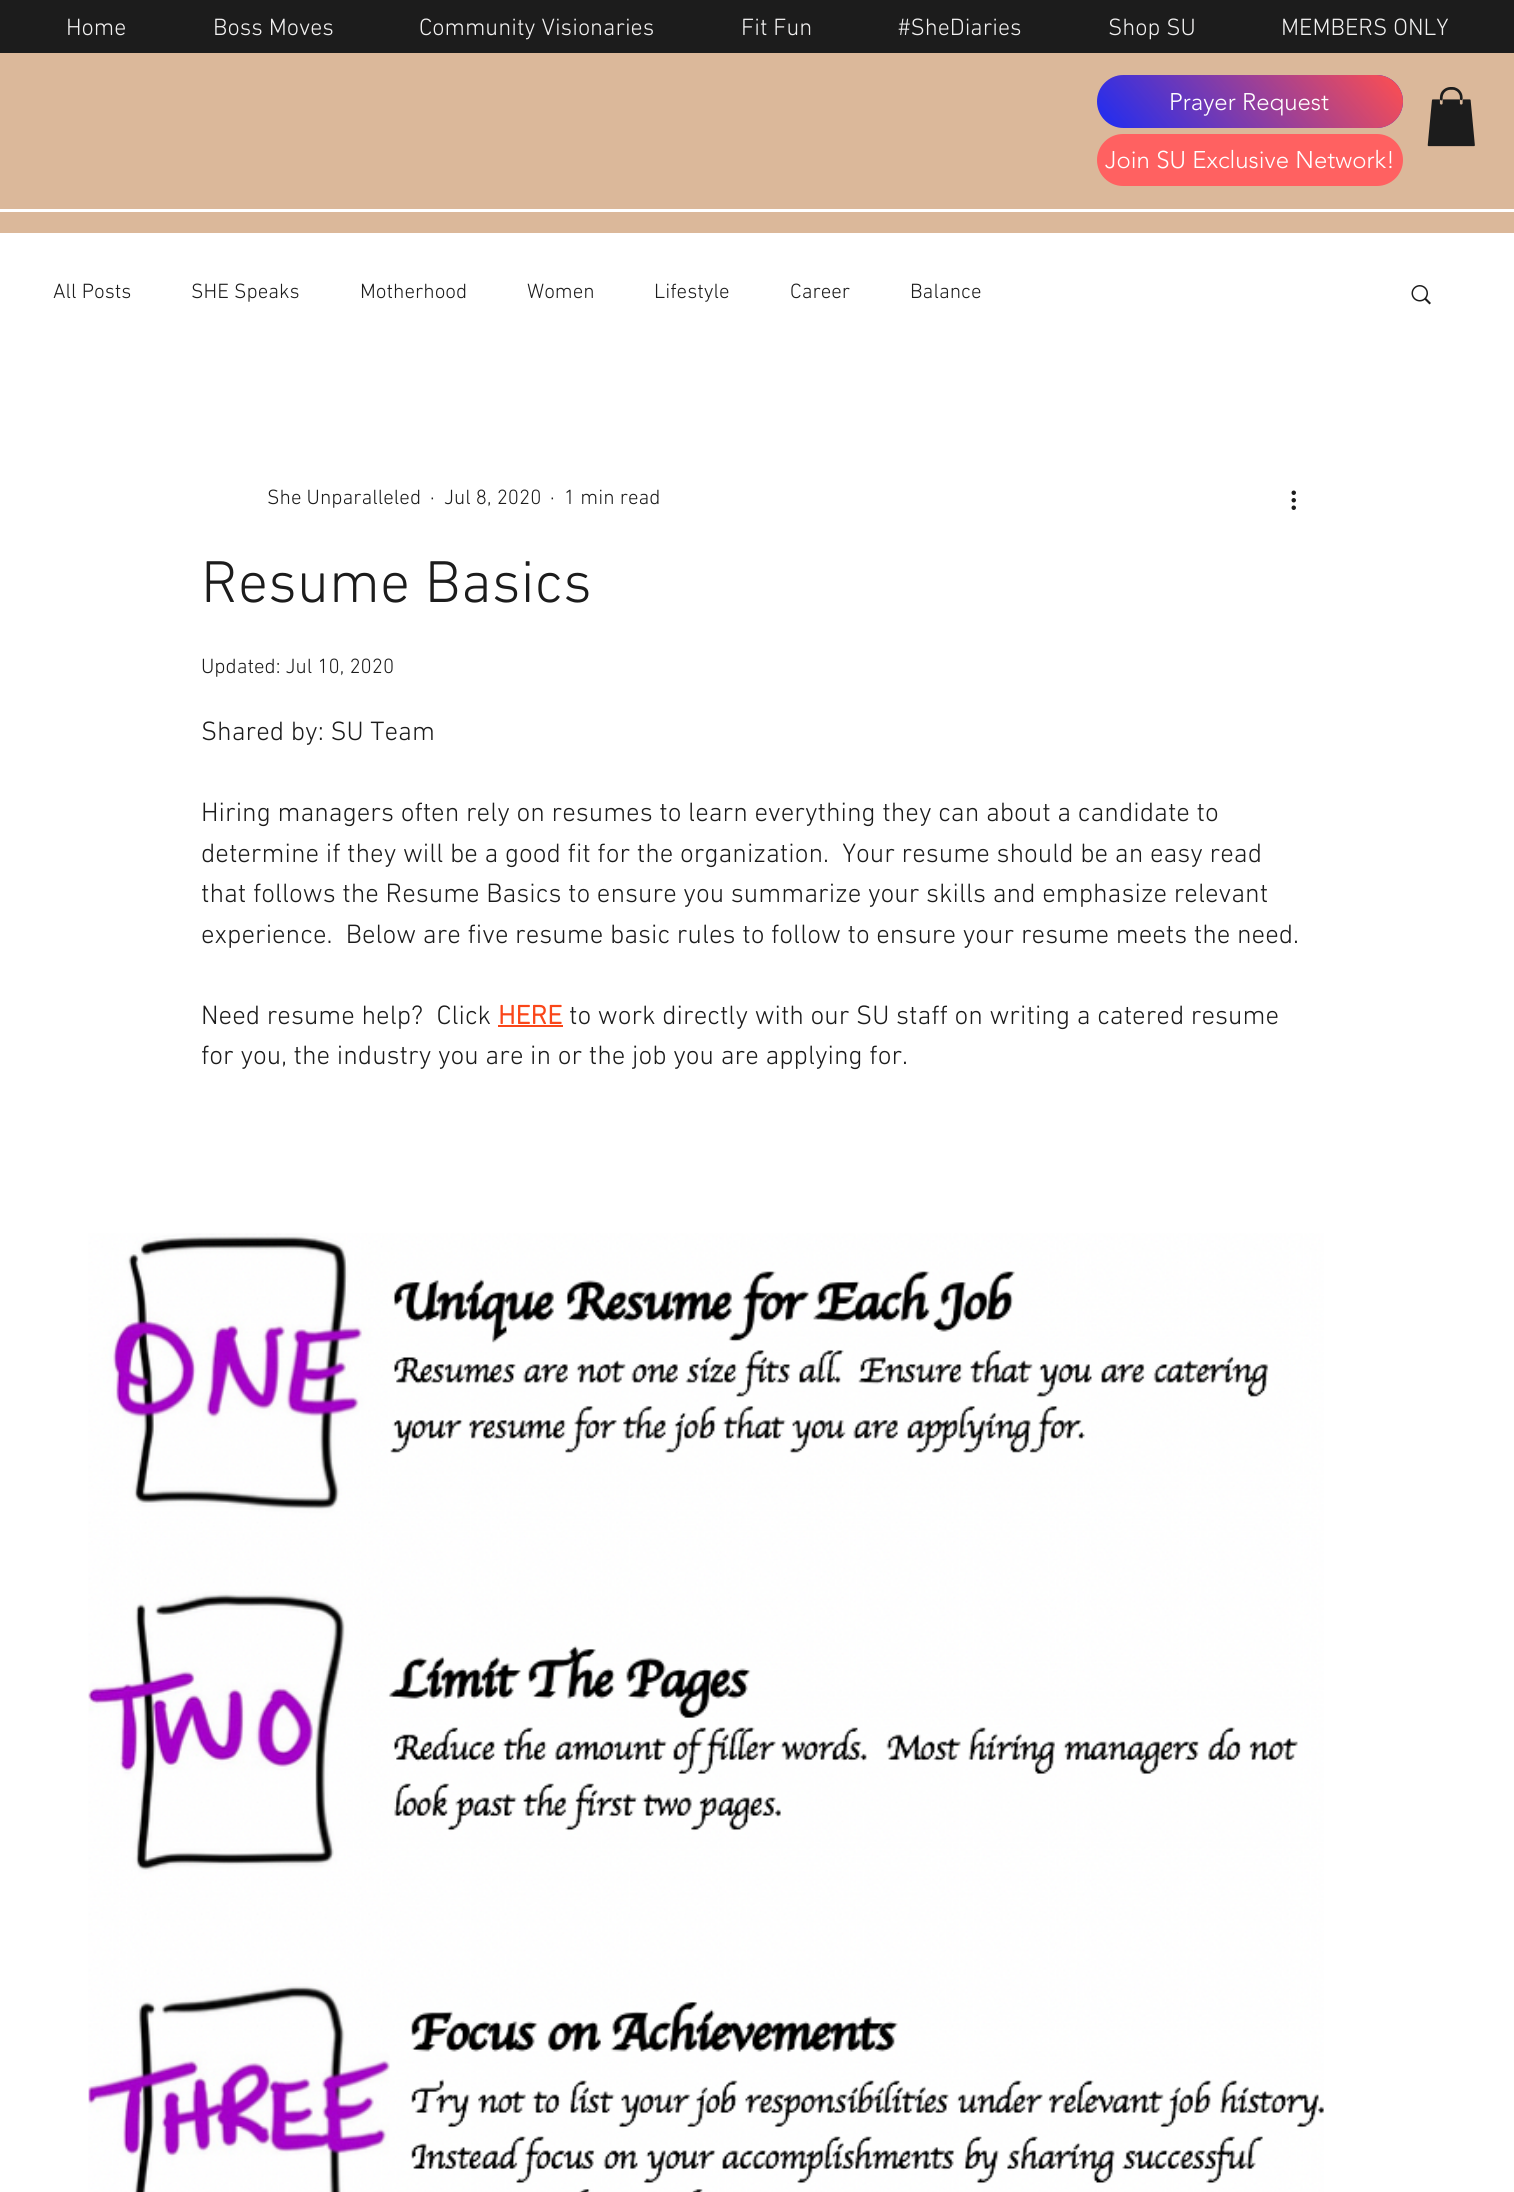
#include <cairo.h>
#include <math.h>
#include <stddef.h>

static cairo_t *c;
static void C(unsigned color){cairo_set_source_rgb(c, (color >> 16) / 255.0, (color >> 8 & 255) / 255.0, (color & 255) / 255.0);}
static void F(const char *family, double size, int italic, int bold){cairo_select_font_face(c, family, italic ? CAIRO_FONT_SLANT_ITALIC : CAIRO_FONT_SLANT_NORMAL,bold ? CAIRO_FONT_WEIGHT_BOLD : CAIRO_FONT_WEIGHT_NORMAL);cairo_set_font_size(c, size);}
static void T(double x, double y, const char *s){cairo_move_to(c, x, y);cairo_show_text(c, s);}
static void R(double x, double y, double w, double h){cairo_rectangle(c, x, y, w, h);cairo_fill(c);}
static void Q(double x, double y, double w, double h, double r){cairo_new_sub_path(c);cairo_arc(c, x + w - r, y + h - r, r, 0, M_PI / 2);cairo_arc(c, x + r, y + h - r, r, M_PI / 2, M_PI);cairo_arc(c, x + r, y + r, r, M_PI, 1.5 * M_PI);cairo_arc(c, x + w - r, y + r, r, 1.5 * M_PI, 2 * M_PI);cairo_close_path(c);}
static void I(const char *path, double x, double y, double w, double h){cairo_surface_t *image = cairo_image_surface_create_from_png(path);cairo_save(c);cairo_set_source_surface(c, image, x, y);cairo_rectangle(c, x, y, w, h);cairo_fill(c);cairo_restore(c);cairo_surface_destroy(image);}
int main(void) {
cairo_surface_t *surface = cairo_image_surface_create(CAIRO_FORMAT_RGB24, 1514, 2192);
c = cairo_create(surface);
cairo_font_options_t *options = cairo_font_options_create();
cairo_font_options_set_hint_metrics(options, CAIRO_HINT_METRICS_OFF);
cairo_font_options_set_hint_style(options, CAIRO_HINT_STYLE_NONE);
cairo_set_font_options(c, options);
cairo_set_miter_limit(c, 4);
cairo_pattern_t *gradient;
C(0xffffff);
cairo_paint(c);
C(0x1c1c1c);
R(0,0,1514,53);
F("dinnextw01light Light",24,0,0);
C(0xf1f0f0);
T(66,35,"Home");
T(213,35,"Boss Moves");
T(419,35,"Community Visionaries");
T(741,35,"Fit Fun");
T(898,35,"#SheDiaries");
T(1108,35,"Shop SU");
T(1281,35,"MEMBERS ONLY");
C(0xdbb89a);
R(0,53,1514,180);
C(0x1d2cf3);
Q(1097,75,306,53,26.5);
cairo_fill(c);
gradient = cairo_pattern_create_linear(1350,14,1149,188);
cairo_pattern_add_color_stop_rgba(gradient,0,1,0.31,0.31,1);
cairo_pattern_add_color_stop_rgba(gradient,1,1,0.31,0.31,0);
cairo_set_source(c,gradient);
cairo_pattern_destroy(gradient);
Q(1097,75,306,53,26.5);
cairo_fill(c);
F("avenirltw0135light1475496 Light",24,0,0);
C(0xffffff);
T(1169,110,"Prayer Request");
I("1.png",1427,87,48,60);
C(0xff6161);
Q(1097,134,306,52,26);
cairo_fill(c);
C(0xffffff);
T(1105,168,"Join SU Exclusive Network!");
R(0,209,1514,3);
F("dinnextw01light Light",21,0,0);
C(0x1c1c1c);
T(53,298,"All Posts");
T(191,298,"SHE Speaks");
T(360,298,"Motherhood");
T(527,298,"Women");
T(654,298,"Lifestyle");
T(790,298,"Career");
T(910,298,"Balance");
I("2.png",1411,285,20,20);
T(267,504,"She Unparalleled");
T(430,504,"·");
T(444,504,"Jul 8, 2020");
T(550,504,"·");
T(564,504,"1 min read");
I("3.png",1291,490,5,20);
F("dinnextw01light Light",60,0,0);
T(201,602,"Resume Basics");
F("dinnextw01light Light",21,0,0);
T(201,673,"Updated: Jul 10, 2020");
F("dinnextw01light Light",27,0,0);
T(201,740,"Shared by: SU Team");
T(201,821,"Hiring managers often rely on resumes to learn everything they can about a candidate to");
T(201,862,"determine if they will be a good fit for the organization.  Your resume should be an easy read");
T(201,902,"that follows the Resume Basics to ensure you summarize your skills and emphasize relevant");
T(201,943,"experience.  Below are five resume basic rules to follow to ensure your resume meets the need.");
T(201,1024,"Need resume help?  Click");
F("dinnextw01light",27,0,1);
C(0xfa4619);
T(498,1024,"HERE");
R(498,1025,65,2);
F("dinnextw01light Light",27,0,0);
C(0x1c1c1c);
T(569,1024,"to work directly with our SU staff on writing a catered resume");
T(201,1064,"for you, the industry you are in or the job you are applying for.");
I("4.png",88,1233,1236,959);
cairo_surface_write_to_png(surface, "o.png");
cairo_font_options_destroy(options);
cairo_destroy(c);
cairo_surface_destroy(surface);
return 0;
}
